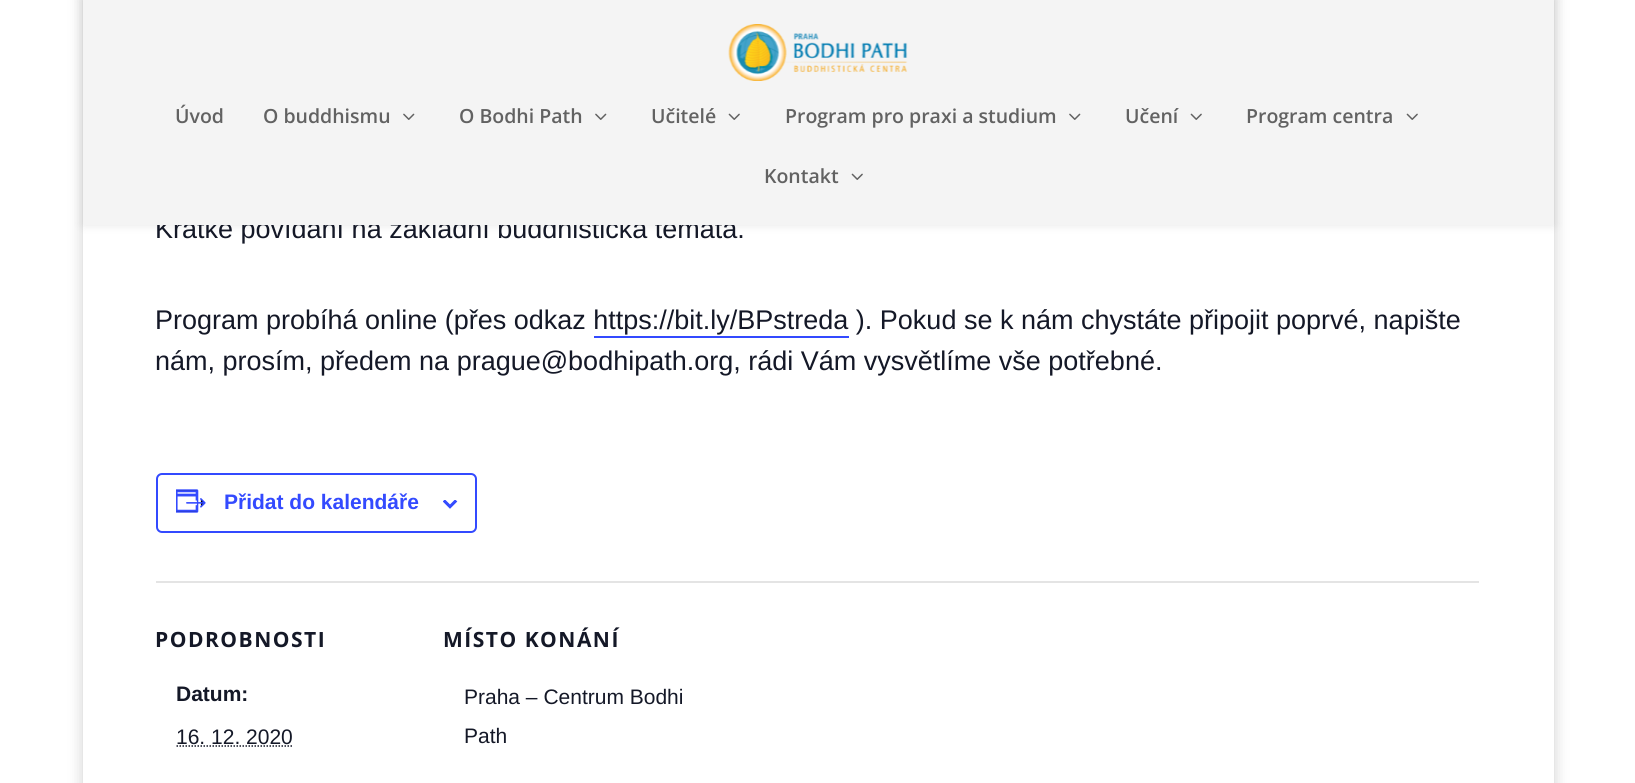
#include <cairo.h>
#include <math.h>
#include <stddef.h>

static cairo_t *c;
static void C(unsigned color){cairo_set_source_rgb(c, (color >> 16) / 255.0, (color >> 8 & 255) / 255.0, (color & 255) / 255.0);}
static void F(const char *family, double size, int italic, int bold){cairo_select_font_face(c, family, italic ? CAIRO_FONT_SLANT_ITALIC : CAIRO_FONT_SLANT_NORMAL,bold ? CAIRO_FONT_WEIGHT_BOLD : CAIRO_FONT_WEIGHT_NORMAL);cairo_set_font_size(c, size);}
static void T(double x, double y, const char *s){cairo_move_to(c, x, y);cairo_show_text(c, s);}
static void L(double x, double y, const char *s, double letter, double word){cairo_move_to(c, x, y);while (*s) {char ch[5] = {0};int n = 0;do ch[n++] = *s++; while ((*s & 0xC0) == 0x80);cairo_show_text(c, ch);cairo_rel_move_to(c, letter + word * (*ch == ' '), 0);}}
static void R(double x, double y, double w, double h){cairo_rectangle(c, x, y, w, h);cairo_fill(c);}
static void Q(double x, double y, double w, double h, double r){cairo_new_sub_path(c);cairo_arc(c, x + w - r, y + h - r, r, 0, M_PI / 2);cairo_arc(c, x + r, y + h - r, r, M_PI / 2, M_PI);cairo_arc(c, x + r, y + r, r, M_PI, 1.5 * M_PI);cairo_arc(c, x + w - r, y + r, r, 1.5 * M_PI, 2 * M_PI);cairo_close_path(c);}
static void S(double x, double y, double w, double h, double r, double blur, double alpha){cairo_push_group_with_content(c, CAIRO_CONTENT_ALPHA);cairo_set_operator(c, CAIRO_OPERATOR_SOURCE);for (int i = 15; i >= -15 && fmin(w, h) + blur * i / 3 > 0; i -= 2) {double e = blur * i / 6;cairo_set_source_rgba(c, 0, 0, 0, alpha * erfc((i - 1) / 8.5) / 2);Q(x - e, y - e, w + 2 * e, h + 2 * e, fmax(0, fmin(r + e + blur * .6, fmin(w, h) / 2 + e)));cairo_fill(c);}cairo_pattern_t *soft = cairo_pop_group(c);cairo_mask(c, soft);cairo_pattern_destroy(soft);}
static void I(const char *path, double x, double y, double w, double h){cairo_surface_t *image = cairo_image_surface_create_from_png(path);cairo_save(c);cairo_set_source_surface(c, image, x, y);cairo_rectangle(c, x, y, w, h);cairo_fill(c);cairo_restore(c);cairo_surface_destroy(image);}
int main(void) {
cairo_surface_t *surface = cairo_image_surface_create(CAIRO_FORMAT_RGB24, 1635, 783);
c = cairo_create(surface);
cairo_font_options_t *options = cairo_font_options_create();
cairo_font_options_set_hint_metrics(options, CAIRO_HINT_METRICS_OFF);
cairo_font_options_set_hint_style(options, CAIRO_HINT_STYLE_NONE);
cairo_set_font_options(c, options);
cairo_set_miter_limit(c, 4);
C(0xffffff);
cairo_paint(c);
cairo_save(c);
cairo_set_fill_rule(c,CAIRO_FILL_RULE_EVEN_ODD);
cairo_new_path(c);
cairo_move_to(c,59,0);
cairo_line_to(c,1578,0);
cairo_line_to(c,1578,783);
cairo_line_to(c,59,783);
cairo_close_path(c);
cairo_move_to(c,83,-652);
cairo_line_to(c,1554,-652);
cairo_line_to(c,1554,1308);
cairo_line_to(c,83,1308);
cairo_close_path(c);
cairo_clip(c);
C(0x000000);
S(83,-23,1471,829,0,7.5,.2);
cairo_restore(c);
C(0x000000);
S(83,0,1471,225,0,5,.1);
F("Liberation Sans",27,0,0);
C(0x141827);
T(155,238,"Krátké povídání na základní buddhistická témata.");
C(0xf4f4f4);
R(83,0,1471,225);
I("1.png",728,24,180,57);
F("Open Sans SemiBold",19.5,0,0);
C(0x626262);
T(175,123,"Úvod");
T(263,123,"O buddhismu");
I("2.png",403,113,12,7);
T(459,123,"O Bodhi Path");
I("2.png",595,113,12,7);
T(651,123,"Učitelé");
I("3.png",728,113,12,7);
T(785,123,"Program pro praxi a studium");
I("2.png",1069,113,12,7);
T(1125,123,"Učení");
I("3.png",1190,113,12,7);
T(1246,123,"Program centra");
I("3.png",1406,113,12,7);
T(764,183,"Kontakt");
I("3.png",851,173,12,7);
F("Liberation Sans",27,0,0);
C(0x141827);
T(155,329,"Program probíhá online (přes odkaz https://bit.ly/BPstreda ). Pokud se k nám chystáte připojit poprvé, napište");
C(0x334aff);
R(594,336,255,2);
C(0x141827);
T(155,370,"nám, prosím, předem na prague@bodhipath.org, rádi Vám vysvětlíme vše potřebné.");
Q(157,474,319,58,5);
C(0x334aff);
cairo_stroke(c);
I("4.png",176,489,30,24);
F("Liberation Sans",21,0,1);
T(224,509,"Přidat do kalendáře");
I("5.png",443,500,15,9);
C(0xe4e4e4);
R(156,581,1323,2);
F("Open Sans",21,0,1);
C(0x141827);
L(155,647,"PODROBNOSTI",1.5,0);
F("Liberation Sans",21,0,1);
T(176,701,"Datum:");
F("Liberation Sans",21,0,0);
T(176,744,"16. 12. 2020");
cairo_new_path(c);
cairo_move_to(c,176.5,746);
cairo_line_to(c,293,746);
cairo_set_line_width(c,1.5);
cairo_set_dash(c,(double[]){1.5,1.5},2,0);
cairo_stroke(c);
F("Open Sans",21,0,1);
L(443,647,"MÍSTO KONÁNÍ",1.5,0);
F("Liberation Sans",21,0,0);
T(464,704,"Praha – Centrum Bodhi");
T(464,743,"Path");
cairo_surface_write_to_png(surface, "o.png");
cairo_font_options_destroy(options);
cairo_destroy(c);
cairo_surface_destroy(surface);
return 0;
}
